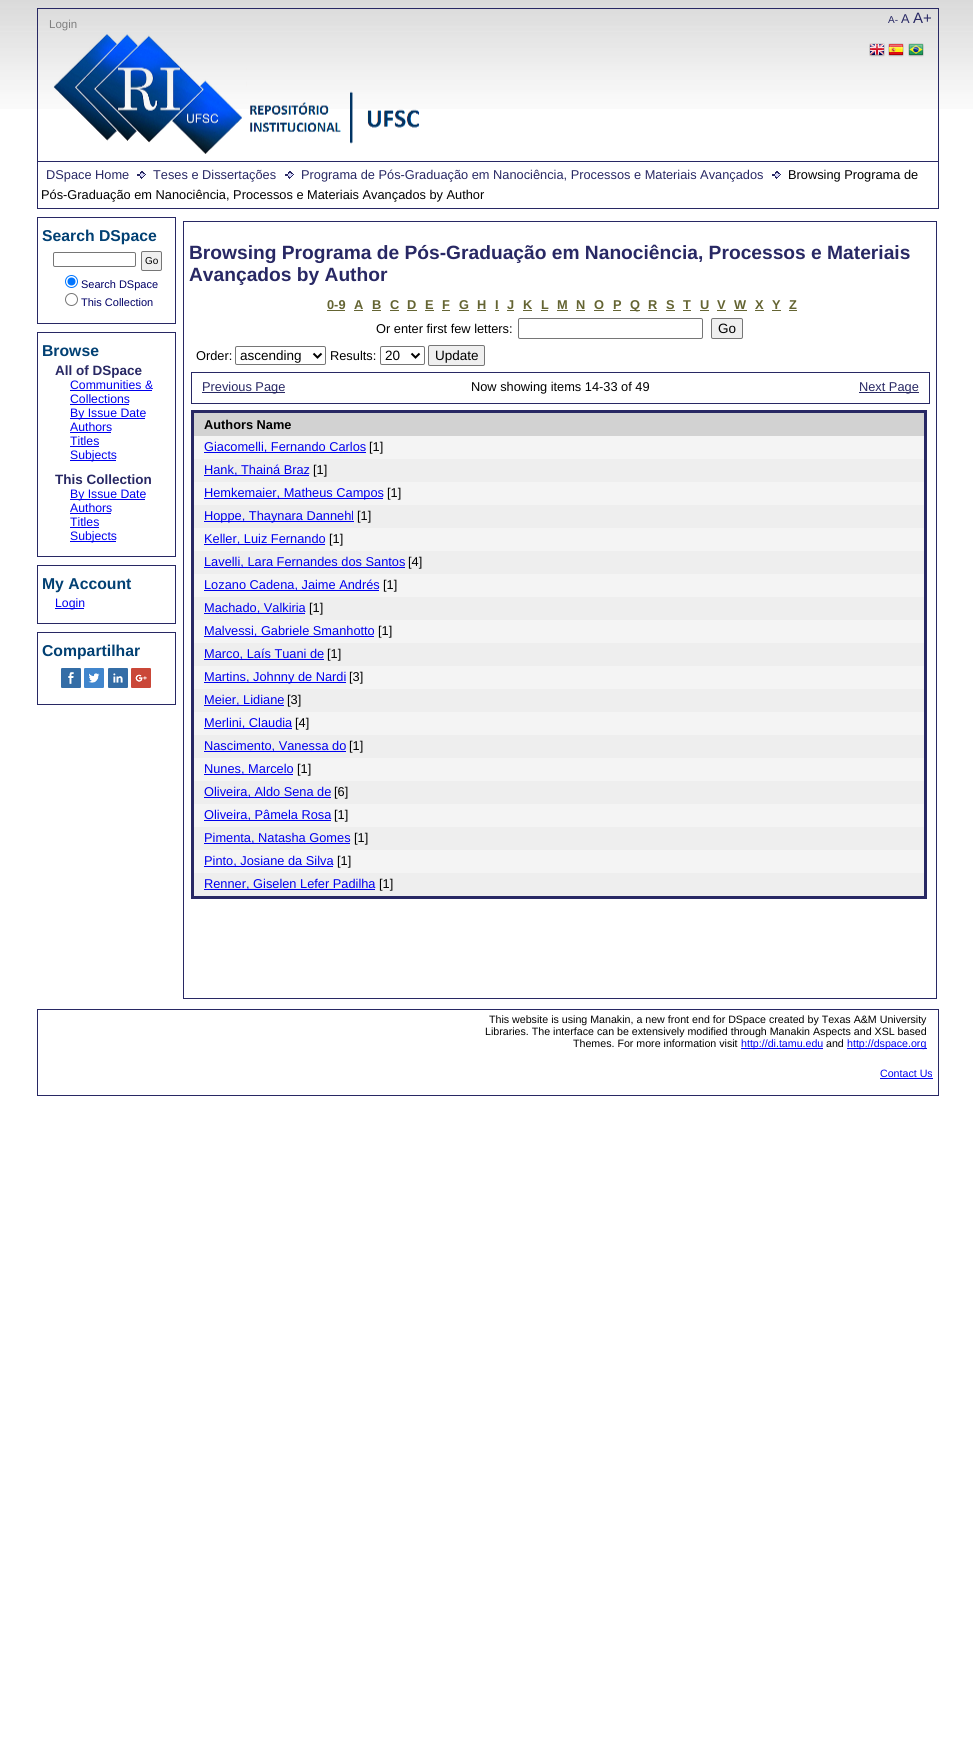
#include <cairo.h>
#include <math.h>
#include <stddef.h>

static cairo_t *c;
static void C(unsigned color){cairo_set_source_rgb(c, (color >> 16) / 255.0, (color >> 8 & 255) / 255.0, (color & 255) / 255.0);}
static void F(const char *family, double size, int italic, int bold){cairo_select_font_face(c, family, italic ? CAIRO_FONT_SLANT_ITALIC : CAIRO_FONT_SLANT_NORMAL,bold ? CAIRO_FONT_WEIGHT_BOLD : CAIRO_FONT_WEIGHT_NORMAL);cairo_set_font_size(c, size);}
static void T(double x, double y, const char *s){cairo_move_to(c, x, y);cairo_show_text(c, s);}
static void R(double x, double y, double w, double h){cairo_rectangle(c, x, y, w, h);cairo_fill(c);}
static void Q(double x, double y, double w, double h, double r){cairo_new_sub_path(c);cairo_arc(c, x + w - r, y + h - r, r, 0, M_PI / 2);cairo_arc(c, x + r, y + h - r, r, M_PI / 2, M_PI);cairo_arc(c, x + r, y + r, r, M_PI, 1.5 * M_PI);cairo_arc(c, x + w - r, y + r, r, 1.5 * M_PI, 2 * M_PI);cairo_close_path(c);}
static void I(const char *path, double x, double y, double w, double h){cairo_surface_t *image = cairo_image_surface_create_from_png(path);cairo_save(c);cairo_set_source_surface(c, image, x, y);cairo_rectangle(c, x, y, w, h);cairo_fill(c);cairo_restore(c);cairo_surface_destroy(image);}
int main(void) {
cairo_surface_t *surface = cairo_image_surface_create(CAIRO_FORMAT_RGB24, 973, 1757);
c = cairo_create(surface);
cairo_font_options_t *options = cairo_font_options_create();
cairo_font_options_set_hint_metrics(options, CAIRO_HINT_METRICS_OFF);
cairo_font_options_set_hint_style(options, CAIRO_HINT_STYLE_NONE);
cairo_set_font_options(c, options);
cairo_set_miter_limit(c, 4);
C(0xffffff);
cairo_paint(c);
I("1.png",0,0,973,109);
cairo_rectangle(c,37.5,8.5,901,200);
C(0x282864);
cairo_set_line_width(c,1);
cairo_stroke(c);
F("Liberation Sans",10,0,0);
T(888,23,"A-");
F("Liberation Sans",12.8,0,0);
T(901,23,"A");
F("Liberation Sans",15,0,0);
T(913,23,"A+");
F("Liberation Sans",11.5,0,0);
C(0x808080);
T(49,28,"Login");
I("2.png",869,43,16,14);
I("3.png",888,43,16,14);
I("4.png",908,43,16,14);
I("5.png",53,34,367,120);
C(0x282864);
R(38,161,900,1);
F("Liberation Sans",12.8,0,0);
T(46,179,"DSpace Home");
I("6.png",137,171,9,8);
T(153,179,"Teses e Dissertações");
I("6.png",285,171,9,8);
T(301,179,"Programa de Pós-Graduação em Nanociência, Processos e Materiais Avançados");
I("6.png",772,171,9,8);
C(0x000000);
T(788,179,"Browsing Programa de");
T(41,199,"Pós-Graduação em Nanociência, Processos e Materiais Avançados by Author");
cairo_rectangle(c,37.5,217.5,138,106);
C(0x282864);
cairo_stroke(c);
F("Liberation Sans",15.75,0,1);
C(0x014073);
T(42,241,"Search DSpace");
Q(53.5,252.5,82,14,1.5);
C(0x767676);
cairo_stroke(c);
C(0xefefef);
Q(141.5,251.5,20,19,1.5);
cairo_fill_preserve(c);
C(0x767676);
cairo_stroke(c);
F("Liberation Sans",10,0,0);
C(0x000000);
T(145,264,"Go");
cairo_new_path(c);
cairo_arc(c,71.5,281.5,6,0,2 * M_PI);
C(0x0075ff);
cairo_stroke(c);
cairo_arc(c,71.5,281.5,4,0,2 * M_PI);
cairo_fill(c);
F("Liberation Sans",11,0,0);
C(0x000066);
T(81,288,"Search DSpace");
cairo_new_path(c);
cairo_arc(c,71.5,299.5,6,0,2 * M_PI);
C(0x767676);
cairo_stroke(c);
C(0x000066);
T(81,306,"This Collection");
cairo_rectangle(c,37.5,332.5,138,224);
C(0x282864);
cairo_stroke(c);
F("Liberation Sans",15.75,0,1);
C(0x014073);
T(42,356,"Browse");
F("Liberation Sans",13.5,0,1);
C(0x282864);
T(55,375,"All of DSpace");
F("Liberation Sans",12.25,0,0);
C(0x0000ee);
T(70,389,"Communities &");
R(70,390,82,1);
T(70,403,"Collections");
R(70,404,59,1);
R(70,418,75,1);
T(70,417,"By Issue Date");
T(70,431,"Authors");
R(70,432,41,1);
T(70,445,"Titles");
R(70,446,29,1);
R(70,460,46,1);
T(70,459,"Subjects");
F("Liberation Sans",13.5,0,1);
C(0x282864);
T(55,484,"This Collection");
C(0x0000ee);
R(70,499,75,1);
F("Liberation Sans",12.25,0,0);
T(70,498,"By Issue Date");
T(70,512,"Authors");
R(70,513,41,1);
T(70,526,"Titles");
R(70,527,29,1);
R(70,541,46,1);
T(70,540,"Subjects");
cairo_rectangle(c,37.5,565.5,138,58);
C(0x282864);
cairo_stroke(c);
F("Liberation Sans",15.75,0,1);
C(0x014073);
T(42,589,"My Account");
C(0x0000ee);
R(55,608,29,1);
F("Liberation Sans",12.25,0,0);
T(55,607,"Login");
cairo_rectangle(c,37.5,632.5,138,72);
C(0x282864);
cairo_stroke(c);
I("7.png",61,668,20,20);
I("8.png",84,668,20,20);
I("9.png",108,668,20,20);
I("10.png",131,668,20,20);
F("Liberation Sans",15.75,0,1);
C(0x014073);
T(42,656,"Compartilhar");
cairo_rectangle(c,183.5,221.5,753,777);
C(0x282864);
cairo_stroke(c);
F("Liberation Sans",19.2,0,1);
T(189,259,"Browsing Programa de Pós-Graduação em Nanociência, Processos e Materiais");
T(189,281,"Avançados by Author");
F("Liberation Sans",12.8,0,1);
C(0x646432);
T(327,309,"0-9");
R(327,310,18,1);
T(354,309,"A");
R(354,310,9,1);
T(372,309,"B");
R(372,310,9,1);
T(390,309,"C");
R(390,310,9,1);
T(407,309,"D");
R(407,310,10,1);
T(425,309,"E");
R(425,310,9,1);
T(442,309,"F");
R(442,310,8,1);
T(459,309,"G");
R(459,310,10,1);
T(477,309,"H");
R(477,310,9,1);
T(495,309,"I");
R(495,310,4,1);
T(507,309,"J");
R(507,310,7,1);
T(523,309,"K");
R(523,310,9,1);
T(541,309,"L");
R(541,310,7,1);
T(557,309,"M");
R(557,310,11,1);
T(576,309,"N");
R(576,310,9,1);
T(594,309,"O");
R(594,310,10,1);
T(613,309,"P");
R(613,310,8,1);
R(630,310,10,1);
T(630,309,"Q");
T(648,309,"R");
R(648,310,9,1);
T(666,309,"S");
R(666,310,9,1);
T(683,309,"T");
R(683,310,8,1);
T(700,309,"U");
R(700,310,9,1);
T(717,309,"V");
R(717,310,9,1);
T(734,309,"W");
R(734,310,13,1);
T(755,309,"X");
R(755,310,9,1);
T(772,309,"Y");
R(772,310,9,1);
T(789,309,"Z");
R(789,310,8,1);
F("Liberation Sans",12.8,0,0);
C(0x000000);
T(376,333,"Or enter first few letters:");
Q(518.5,318.5,184,20,1.5);
C(0x767676);
cairo_stroke(c);
C(0xefefef);
Q(711.5,318.5,31,20,1.5);
cairo_fill_preserve(c);
C(0x767676);
cairo_stroke(c);
F("Liberation Sans",13.5,0,0);
C(0x000000);
T(718,333,"Go");
F("Liberation Sans",12.8,0,0);
T(196,360,"Order:");
Q(235.5,346.5,90,18,1.5);
C(0x767676);
cairo_stroke(c);
cairo_new_path(c);
cairo_move_to(c,313.5,353.5);
cairo_line_to(c,317.5,357.5);
cairo_line_to(c,321.5,353.5);
C(0x000000);
cairo_set_line_width(c,2);
cairo_stroke(c);
F("Liberation Sans",13.5,0,0);
T(240,360,"ascending");
F("Liberation Sans",12.8,0,0);
T(330,360,"Results:");
Q(380.5,346.5,44,18,1.5);
C(0x767676);
cairo_set_line_width(c,1);
cairo_stroke(c);
cairo_new_path(c);
cairo_move_to(c,411.5,353.5);
cairo_line_to(c,415.5,357.5);
cairo_line_to(c,419.5,353.5);
C(0x000000);
cairo_set_line_width(c,2);
cairo_stroke(c);
F("Liberation Sans",13.5,0,0);
T(385,360,"20");
C(0xefefef);
Q(428.5,345.5,56,20,1.5);
cairo_fill_preserve(c);
C(0x767676);
cairo_set_line_width(c,1);
cairo_stroke(c);
C(0x000000);
T(435,360,"Update");
cairo_rectangle(c,191.5,372.5,738,31);
C(0x282864);
cairo_stroke(c);
R(202,392,83,1);
F("Liberation Sans",12.8,0,0);
T(202,391,"Previous Page");
C(0x000000);
T(471,391,"Now showing items 14-33 of 49");
C(0x282864);
R(859,392,60,1);
T(859,391,"Next Page");
cairo_rectangle(c,191.5,410.5,735,488);
cairo_stroke(c);
cairo_rectangle(c,193,412,732,485);
cairo_set_line_width(c,2);
cairo_stroke(c);
C(0xd2d2d2);
R(194,413,730,23);
F("Liberation Sans",12.8,0,1);
C(0x000000);
T(204,429,"Authors Name");
C(0xf4f4f4);
R(194,436,730,23);
C(0x0000ee);
R(204,452,162,1);
F("Liberation Sans",12.8,0,0);
T(204,451,"Giacomelli, Fernando Carlos");
C(0x000000);
T(369,451,"[1]");
C(0xeeeeee);
R(194,459,730,23);
C(0x0000ee);
R(204,475,105,1);
T(204,474,"Hank, Thainá Braz");
C(0x000000);
T(313,474,"[1]");
C(0xf4f4f4);
R(194,482,730,23);
C(0x0000ee);
R(204,498,179,1);
T(204,497,"Hemkemaier, Matheus Campos");
C(0x000000);
T(387,497,"[1]");
C(0xeeeeee);
R(194,505,730,23);
C(0x0000ee);
R(204,521,150,1);
T(204,520,"Hoppe, Thaynara Dannehl");
C(0x000000);
T(357,520,"[1]");
C(0xf4f4f4);
R(194,528,730,23);
C(0x0000ee);
R(204,544,121,1);
T(204,543,"Keller, Luiz Fernando");
C(0x000000);
T(329,543,"[1]");
C(0xeeeeee);
R(194,551,730,23);
C(0x0000ee);
R(204,567,201,1);
T(204,566,"Lavelli, Lara Fernandes dos Santos");
C(0x000000);
T(408,566,"[4]");
C(0xf4f4f4);
R(194,574,730,23);
C(0x0000ee);
R(204,590,175,1);
T(204,589,"Lozano Cadena, Jaime Andrés");
C(0x000000);
T(383,589,"[1]");
C(0xeeeeee);
R(194,597,730,23);
C(0x0000ee);
R(204,613,101,1);
T(204,612,"Machado, Valkiria");
C(0x000000);
T(309,612,"[1]");
C(0xf4f4f4);
R(194,620,730,23);
C(0x0000ee);
R(204,636,170,1);
T(204,635,"Malvessi, Gabriele Smanhotto");
C(0x000000);
T(378,635,"[1]");
C(0xeeeeee);
R(194,643,730,23);
C(0x0000ee);
R(204,659,120,1);
T(204,658,"Marco, Laís Tuani de");
C(0x000000);
T(327,658,"[1]");
C(0xf4f4f4);
R(194,666,730,23);
C(0x0000ee);
R(204,682,142,1);
T(204,681,"Martins, Johnny de Nardi");
C(0x000000);
T(349,681,"[3]");
C(0xeeeeee);
R(194,689,730,23);
C(0x0000ee);
R(204,705,80,1);
T(204,704,"Meier, Lidiane");
C(0x000000);
T(287,704,"[3]");
C(0xf4f4f4);
R(194,712,730,23);
C(0x0000ee);
R(204,728,88,1);
T(204,727,"Merlini, Claudia");
C(0x000000);
T(295,727,"[4]");
C(0xeeeeee);
R(194,735,730,23);
C(0x0000ee);
R(204,751,142,1);
T(204,750,"Nascimento, Vanessa do");
C(0x000000);
T(349,750,"[1]");
C(0xf4f4f4);
R(194,758,730,23);
C(0x0000ee);
R(204,774,89,1);
T(204,773,"Nunes, Marcelo");
C(0x000000);
T(297,773,"[1]");
C(0xeeeeee);
R(194,781,730,23);
C(0x0000ee);
R(204,797,127,1);
T(204,796,"Oliveira, Aldo Sena de");
C(0x000000);
T(334,796,"[6]");
C(0xf4f4f4);
R(194,804,730,23);
C(0x0000ee);
R(204,820,127,1);
T(204,819,"Oliveira, Pâmela Rosa");
C(0x000000);
T(334,819,"[1]");
C(0xeeeeee);
R(194,827,730,23);
C(0x0000ee);
R(204,843,146,1);
T(204,842,"Pimenta, Natasha Gomes");
C(0x000000);
T(354,842,"[1]");
C(0xf4f4f4);
R(194,850,730,23);
C(0x0000ee);
R(204,866,129,1);
T(204,865,"Pinto, Josiane da Silva");
C(0x000000);
T(337,865,"[1]");
C(0xeeeeee);
R(194,873,730,23);
C(0x0000ee);
R(204,889,171,1);
T(204,888,"Renner, Giselen Lefer Padilha");
C(0x000000);
T(379,888,"[1]");
cairo_rectangle(c,37.5,1009.5,901,86);
C(0x282864);
cairo_set_line_width(c,1);
cairo_stroke(c);
F("Liberation Sans",10.65,0,0);
C(0x000000);
T(489,1023,"This website is using Manakin, a new front end for DSpace created by Texas A&M University");
T(485,1035,"Libraries. The interface can be extensively modified through Manakin Aspects and XSL based");
T(573,1047,"Themes. For more information visit");
C(0x0000ee);
R(741,1048,82,1);
T(741,1047,"http://di.tamu.edu");
C(0x000000);
T(826,1047,"and");
C(0x0000ee);
R(847,1048,80,1);
T(847,1047,"http://dspace.org");
T(880,1077,"Contact Us");
R(880,1078,53,1);
cairo_surface_write_to_png(surface, "o.png");
cairo_font_options_destroy(options);
cairo_destroy(c);
cairo_surface_destroy(surface);
return 0;
}
